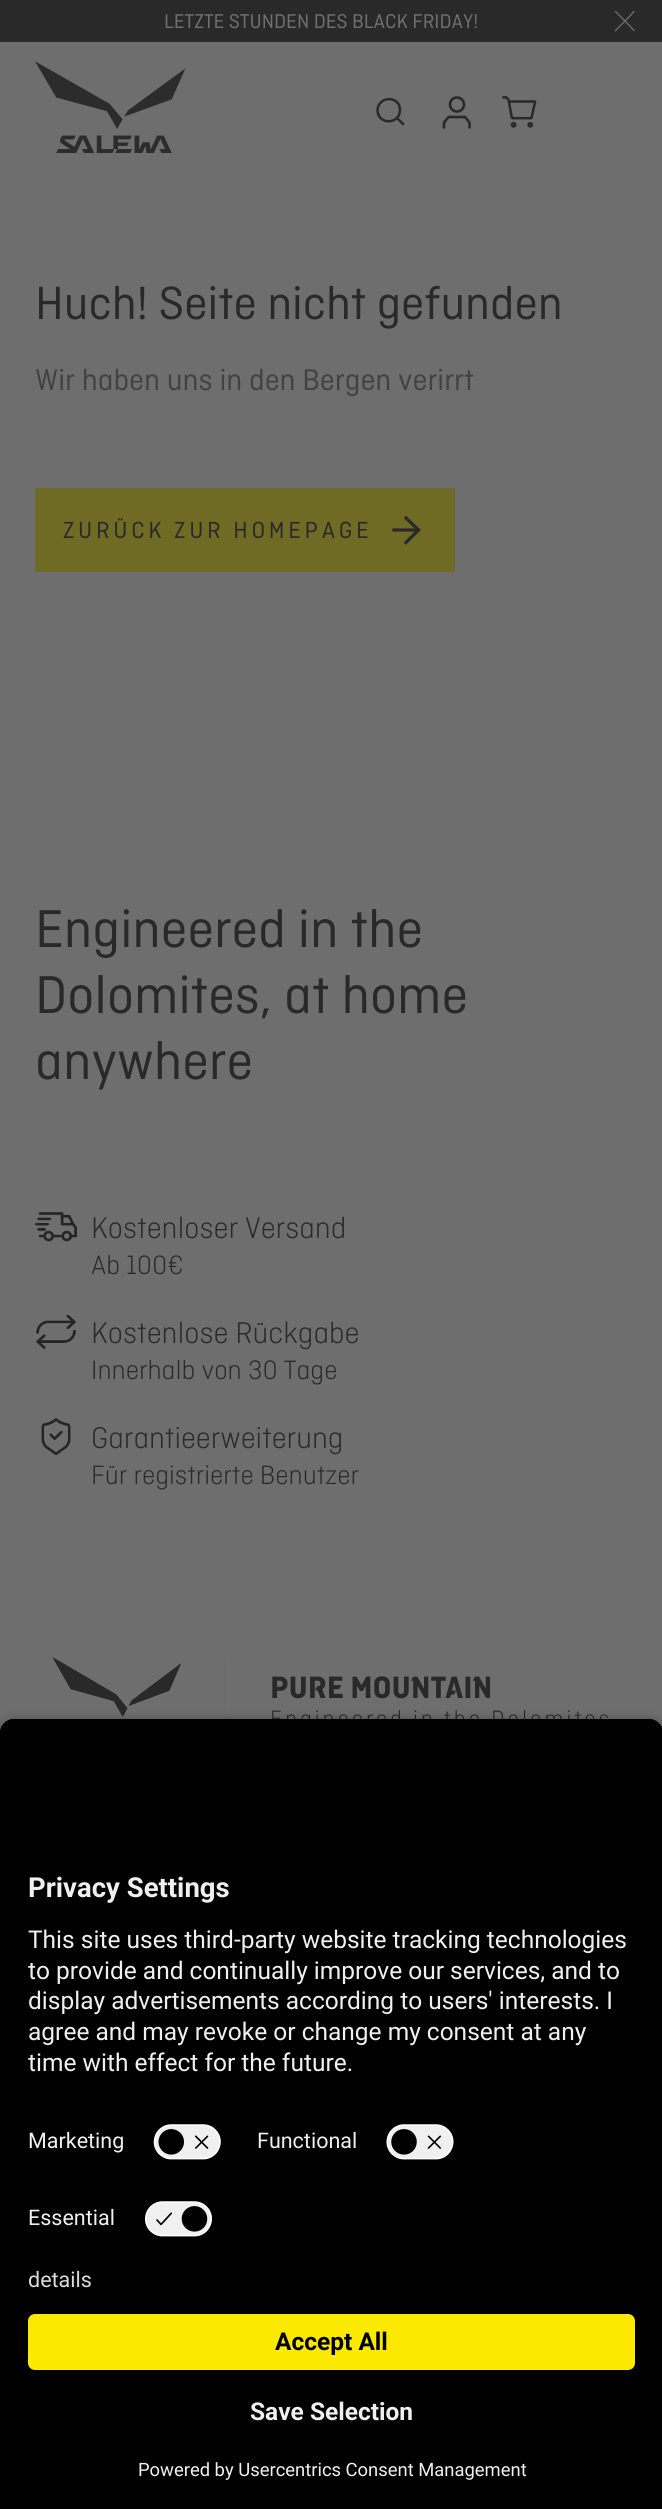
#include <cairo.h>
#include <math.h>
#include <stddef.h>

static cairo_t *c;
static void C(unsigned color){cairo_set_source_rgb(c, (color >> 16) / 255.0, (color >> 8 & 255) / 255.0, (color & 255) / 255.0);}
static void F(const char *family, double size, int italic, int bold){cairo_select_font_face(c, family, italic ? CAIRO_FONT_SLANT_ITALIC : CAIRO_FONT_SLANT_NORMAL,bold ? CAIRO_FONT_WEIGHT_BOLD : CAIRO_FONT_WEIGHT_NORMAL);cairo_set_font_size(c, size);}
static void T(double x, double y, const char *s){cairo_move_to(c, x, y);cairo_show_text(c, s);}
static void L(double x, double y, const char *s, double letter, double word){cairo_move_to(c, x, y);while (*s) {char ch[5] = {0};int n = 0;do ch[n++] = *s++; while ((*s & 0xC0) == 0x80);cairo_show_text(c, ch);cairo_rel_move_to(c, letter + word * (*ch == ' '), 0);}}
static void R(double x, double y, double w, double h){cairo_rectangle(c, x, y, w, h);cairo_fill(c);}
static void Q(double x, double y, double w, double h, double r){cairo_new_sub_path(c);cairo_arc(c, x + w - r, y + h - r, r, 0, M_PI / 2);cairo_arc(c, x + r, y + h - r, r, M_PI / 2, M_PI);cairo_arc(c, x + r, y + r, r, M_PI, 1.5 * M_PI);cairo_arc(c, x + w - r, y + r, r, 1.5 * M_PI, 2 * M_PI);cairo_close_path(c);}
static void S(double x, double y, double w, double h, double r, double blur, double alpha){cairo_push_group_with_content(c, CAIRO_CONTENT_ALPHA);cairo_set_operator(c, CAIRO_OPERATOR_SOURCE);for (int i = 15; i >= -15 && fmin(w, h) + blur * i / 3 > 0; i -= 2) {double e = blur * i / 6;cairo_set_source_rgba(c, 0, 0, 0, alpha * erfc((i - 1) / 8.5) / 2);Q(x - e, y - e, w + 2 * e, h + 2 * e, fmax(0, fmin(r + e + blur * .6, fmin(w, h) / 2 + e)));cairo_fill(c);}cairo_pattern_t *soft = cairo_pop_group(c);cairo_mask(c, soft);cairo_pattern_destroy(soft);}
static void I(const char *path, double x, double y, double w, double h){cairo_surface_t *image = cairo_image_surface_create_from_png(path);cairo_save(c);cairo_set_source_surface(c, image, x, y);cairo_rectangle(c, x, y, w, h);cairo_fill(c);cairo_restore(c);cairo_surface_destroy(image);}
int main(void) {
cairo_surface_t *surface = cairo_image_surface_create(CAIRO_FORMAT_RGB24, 662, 2509);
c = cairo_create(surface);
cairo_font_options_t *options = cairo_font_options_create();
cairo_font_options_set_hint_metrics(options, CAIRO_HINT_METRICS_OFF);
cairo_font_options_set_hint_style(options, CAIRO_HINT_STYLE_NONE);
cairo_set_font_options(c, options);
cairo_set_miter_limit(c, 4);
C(0x6e6e6e);
cairo_paint(c);
C(0x292929);
R(0,0,662,42);
F("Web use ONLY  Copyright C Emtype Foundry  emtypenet",21,0,0);
C(0x707070);
T(164,28,"LETZTE STUNDEN DES BLACK FRIDAY!");
cairo_save(c);
cairo_rectangle(c,614,11,21,21);
cairo_clip(c);
cairo_new_path(c);
cairo_move_to(c,615,31);
cairo_line_to(c,625,21);
cairo_move_to(c,625,21);
cairo_line_to(c,634.5,31);
cairo_move_to(c,625,21);
cairo_line_to(c,615,11);
cairo_move_to(c,625,21);
cairo_line_to(c,634.5,11);
cairo_set_line_width(c,1.3);
cairo_set_line_join(c,CAIRO_LINE_JOIN_ROUND);
cairo_stroke(c);
cairo_restore(c);
I("1.png",35,61,151,92);
cairo_new_path(c);
cairo_move_to(c,403,124);
cairo_line_to(c,397,118);
cairo_move_to(c,400,110);
cairo_curve_to(c,400,121.5,385,125.5,379,116);
cairo_curve_to(c,378,114,377.5,112,377.5,110);
cairo_curve_to(c,378.5,95.5,400,95.5,400,110);
cairo_close_path(c);
C(0x292929);
cairo_set_line_width(c,2.5);
cairo_set_line_cap(c,CAIRO_LINE_CAP_SQUARE);
cairo_set_line_join(c,CAIRO_LINE_JOIN_ROUND);
cairo_stroke(c);
cairo_new_path(c);
cairo_move_to(c,444,128.5);
cairo_line_to(c,444,122.5);
cairo_line_to(c,448.5,117);
cairo_line_to(c,465,117);
cairo_line_to(c,469.5,122.5);
cairo_line_to(c,469.5,128.5);
cairo_set_line_width(c,2.6);
cairo_set_line_cap(c,CAIRO_LINE_CAP_BUTT);
cairo_stroke(c);
cairo_arc(c,457,104.5,7,0,2 * M_PI);
cairo_set_line_join(c,CAIRO_LINE_JOIN_MITER);
cairo_stroke(c);
I("2.png",502,96,35,32);
F("Web use ONLY  Copyright C Emtype Foundry  emtypenet",49,0,0);
T(35,319,"Huch! Seite nicht gefunden");
F("Web use ONLY  Copyright C Emtype Foundry  emtypenet",31.5,0,0);
C(0x424242);
T(35,390,"Wir haben uns in den Bergen verirrt");
C(0x6f6a24);
R(35,488,420,84);
F("Web use ONLY  Copyright C Emtype Foundry  emtypenet",24.5,0,0);
C(0x292929);
L(63,538,"ZURÜCK ZUR HOMEPAGE",3.7,0);
cairo_new_path(c);
cairo_move_to(c,394,530);
cairo_line_to(c,418.5,530);
cairo_move_to(c,418.5,530);
cairo_line_to(c,406,518);
cairo_move_to(c,418.5,530);
cairo_line_to(c,406,542.5);
cairo_set_line_width(c,3.2);
cairo_set_line_cap(c,CAIRO_LINE_CAP_SQUARE);
cairo_set_line_join(c,CAIRO_LINE_JOIN_ROUND);
cairo_stroke(c);
F("Web use ONLY  Copyright C Emtype Foundry  emtypenet",56,0,0);
T(35,947,"Engineered in the");
T(35,1013,"Dolomites, at home");
T(35,1079,"anywhere");
I("3.png",35,1211,42,31);
F("Web use ONLY  Copyright C Emtype Foundry  emtypenet Light",31.5,0,0);
T(91,1238,"Kostenloser Versand");
F("Web use ONLY  Copyright C Emtype Foundry  emtypenet Light",28,0,0);
T(91,1274,"Ab 100€");
I("4.png",36,1314,40,35);
F("Web use ONLY  Copyright C Emtype Foundry  emtypenet Light",31.5,0,0);
T(91,1343,"Kostenlose Rückgabe");
F("Web use ONLY  Copyright C Emtype Foundry  emtypenet Light",28,0,0);
T(91,1379,"Innerhalb von 30 Tage");
I("5.png",41,1418,30,37);
F("Web use ONLY  Copyright C Emtype Foundry  emtypenet Light",31.5,0,0);
T(91,1448,"Garantieerweiterung");
F("Web use ONLY  Copyright C Emtype Foundry  emtypenet Light",28,0,0);
T(91,1484,"Für registrierte Benutzer");
I("6.png",53,1657,555,62);
C(0x000000);
S(0,1724,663,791,14,6,.8);
C(0x000000);
cairo_new_path(c);
cairo_move_to(c,14,1719);
cairo_line_to(c,649,1719);
cairo_curve_to(c,656.5,1719,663,1725.5,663,1733);
cairo_line_to(c,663,2268);
cairo_line_to(c,0,2268);
cairo_line_to(c,0,1733);
cairo_curve_to(c,0,1725.5,6.5,1719,14,1719);
cairo_close_path(c);
cairo_fill(c);
cairo_new_path(c);
cairo_move_to(c,14,1719);
cairo_line_to(c,649,1719);
cairo_curve_to(c,656.5,1719,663,1725.5,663,1733);
cairo_line_to(c,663,2114);
cairo_line_to(c,0,2114);
cairo_line_to(c,0,1733);
cairo_curve_to(c,0,1725.5,6.5,1719,14,1719);
cairo_close_path(c);
cairo_fill(c);
F("Roboto",27.5,0,1);
C(0xf0f0f0);
T(28,1897,"Privacy Settings");
F("Roboto",24.5,0,0);
T(28,1948,"This site uses third-party website tracking technologies");
T(28,1979,"to provide and continually improve our services, and to");
T(28,2009,"display advertisements according to users' interests. I");
T(28,2040,"agree and may revoke or change my consent at any");
T(28,2071,"time with effect for the future.");
F("Roboto",21.5,0,0);
T(28,2148,"Marketing");
I("7.png",153,2124,68,36);
T(257,2148,"Functional");
I("8.png",386,2124,68,36);
T(28,2225,"Essential");
I("9.png",144,2201,69,36);
C(0x000000);
R(0,2268,662,241);
C(0xdddddd);
T(28,2287,"details");
C(0xfce900);
Q(28,2314,607,56,7);
cairo_fill(c);
F("Roboto",24.5,0,1);
C(0x000000);
T(275,2350,"Accept All");
C(0xf0f0f0);
T(250,2420,"Save Selection");
F("Roboto",18.4,0,0);
T(138,2476,"Powered by Usercentrics Consent Management");
cairo_surface_write_to_png(surface, "o.png");
cairo_font_options_destroy(options);
cairo_destroy(c);
cairo_surface_destroy(surface);
return 0;
}
